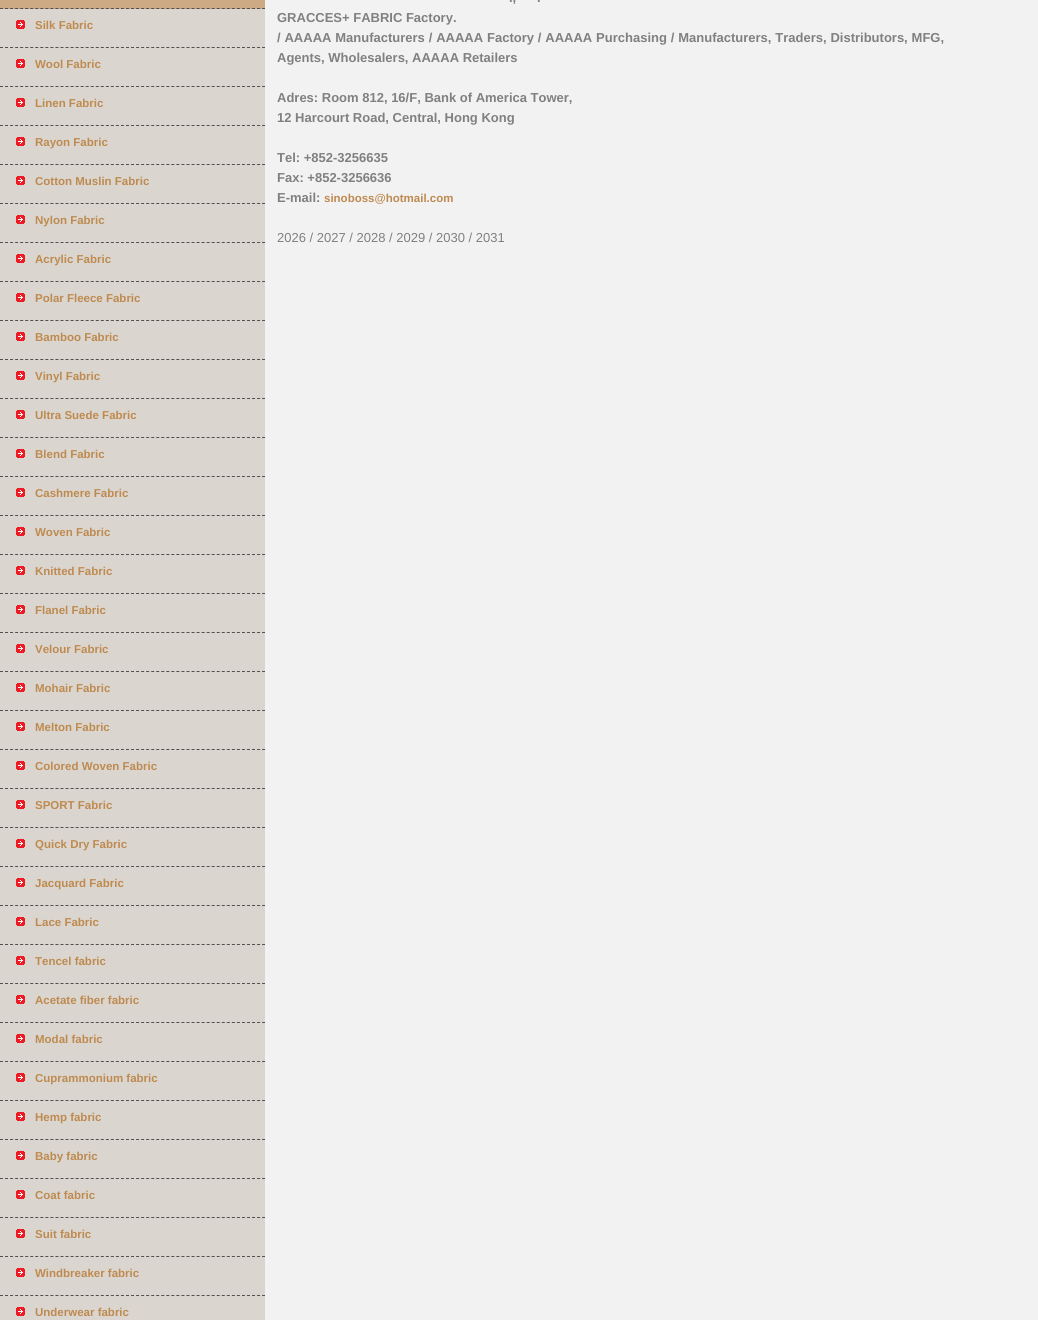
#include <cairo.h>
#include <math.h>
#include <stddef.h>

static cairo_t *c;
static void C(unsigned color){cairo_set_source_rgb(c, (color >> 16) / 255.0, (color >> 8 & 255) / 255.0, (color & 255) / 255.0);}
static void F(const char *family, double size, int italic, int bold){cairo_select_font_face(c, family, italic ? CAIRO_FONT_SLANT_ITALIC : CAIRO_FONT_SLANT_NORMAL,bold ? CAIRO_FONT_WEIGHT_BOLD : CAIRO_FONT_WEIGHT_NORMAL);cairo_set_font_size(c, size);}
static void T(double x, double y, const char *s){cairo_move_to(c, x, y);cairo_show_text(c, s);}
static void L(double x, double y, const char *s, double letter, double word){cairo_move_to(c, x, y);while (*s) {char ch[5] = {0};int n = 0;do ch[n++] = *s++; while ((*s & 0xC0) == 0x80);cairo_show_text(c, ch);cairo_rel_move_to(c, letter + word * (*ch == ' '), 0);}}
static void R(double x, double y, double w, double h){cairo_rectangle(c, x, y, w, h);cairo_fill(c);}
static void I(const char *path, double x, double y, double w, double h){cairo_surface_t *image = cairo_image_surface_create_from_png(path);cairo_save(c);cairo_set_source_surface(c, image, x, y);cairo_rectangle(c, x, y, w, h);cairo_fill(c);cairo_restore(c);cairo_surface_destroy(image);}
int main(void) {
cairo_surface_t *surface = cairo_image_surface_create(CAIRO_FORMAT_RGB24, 1038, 1320);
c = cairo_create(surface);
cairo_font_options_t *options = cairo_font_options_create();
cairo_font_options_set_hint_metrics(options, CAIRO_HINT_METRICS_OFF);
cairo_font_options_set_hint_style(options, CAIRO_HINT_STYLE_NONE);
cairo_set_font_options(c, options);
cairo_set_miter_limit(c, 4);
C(0xf2f2f2);
cairo_paint(c);
C(0xdad6cf);
R(0,9,265,1311);
C(0xcdaa83);
R(0,0,265,9);
cairo_new_path(c);
cairo_move_to(c,0,8.5);
cairo_line_to(c,265,8.5);
C(0x505050);
cairo_set_line_width(c,1);
cairo_set_dash(c,(double[]){3,2.04},2,0);
cairo_stroke(c);
cairo_new_path(c);
cairo_move_to(c,0,47.5);
cairo_line_to(c,265,47.5);
cairo_stroke(c);
I("1.png",16,20,9,9);
F("Liberation Sans",11.5,0,1);
C(0xbe8a50);
T(35,29,"Silk Fabric");
cairo_new_path(c);
cairo_move_to(c,0,86.5);
cairo_line_to(c,265,86.5);
C(0x505050);
cairo_stroke(c);
I("1.png",16,59,9,9);
C(0xbe8a50);
T(35,68,"Wool Fabric");
cairo_new_path(c);
cairo_move_to(c,0,125.5);
cairo_line_to(c,265,125.5);
C(0x505050);
cairo_stroke(c);
I("1.png",16,98,9,9);
C(0xbe8a50);
T(35,107,"Linen Fabric");
cairo_new_path(c);
cairo_move_to(c,0,164.5);
cairo_line_to(c,265,164.5);
C(0x505050);
cairo_stroke(c);
I("1.png",16,137,9,9);
C(0xbe8a50);
T(35,146,"Rayon Fabric");
cairo_new_path(c);
cairo_move_to(c,0,203.5);
cairo_line_to(c,265,203.5);
C(0x505050);
cairo_stroke(c);
I("1.png",16,176,9,9);
C(0xbe8a50);
T(35,185,"Cotton Muslin Fabric");
cairo_new_path(c);
cairo_move_to(c,0,242.5);
cairo_line_to(c,265,242.5);
C(0x505050);
cairo_stroke(c);
I("1.png",16,215,9,9);
C(0xbe8a50);
T(35,224,"Nylon Fabric");
cairo_new_path(c);
cairo_move_to(c,0,281.5);
cairo_line_to(c,265,281.5);
C(0x505050);
cairo_stroke(c);
I("1.png",16,254,9,9);
C(0xbe8a50);
T(35,263,"Acrylic Fabric");
cairo_new_path(c);
cairo_move_to(c,0,320.5);
cairo_line_to(c,265,320.5);
C(0x505050);
cairo_stroke(c);
I("1.png",16,293,9,9);
C(0xbe8a50);
T(35,302,"Polar Fleece Fabric");
cairo_new_path(c);
cairo_move_to(c,0,359.5);
cairo_line_to(c,265,359.5);
C(0x505050);
cairo_stroke(c);
I("1.png",16,332,9,9);
C(0xbe8a50);
T(35,341,"Bamboo Fabric");
cairo_new_path(c);
cairo_move_to(c,0,398.5);
cairo_line_to(c,265,398.5);
C(0x505050);
cairo_stroke(c);
I("1.png",16,371,9,9);
C(0xbe8a50);
T(35,380,"Vinyl Fabric");
cairo_new_path(c);
cairo_move_to(c,0,437.5);
cairo_line_to(c,265,437.5);
C(0x505050);
cairo_stroke(c);
I("1.png",16,410,9,9);
C(0xbe8a50);
T(35,419,"Ultra Suede Fabric");
cairo_new_path(c);
cairo_move_to(c,0,476.5);
cairo_line_to(c,265,476.5);
C(0x505050);
cairo_stroke(c);
I("1.png",16,449,9,9);
C(0xbe8a50);
T(35,458,"Blend Fabric");
cairo_new_path(c);
cairo_move_to(c,0,515.5);
cairo_line_to(c,265,515.5);
C(0x505050);
cairo_stroke(c);
I("1.png",16,488,9,9);
C(0xbe8a50);
T(35,497,"Cashmere Fabric");
cairo_new_path(c);
cairo_move_to(c,0,554.5);
cairo_line_to(c,265,554.5);
C(0x505050);
cairo_stroke(c);
I("1.png",16,527,9,9);
C(0xbe8a50);
T(35,536,"Woven Fabric");
cairo_new_path(c);
cairo_move_to(c,0,593.5);
cairo_line_to(c,265,593.5);
C(0x505050);
cairo_stroke(c);
I("1.png",16,566,9,9);
C(0xbe8a50);
T(35,575,"Knitted Fabric");
cairo_new_path(c);
cairo_move_to(c,0,632.5);
cairo_line_to(c,265,632.5);
C(0x505050);
cairo_stroke(c);
I("1.png",16,605,9,9);
C(0xbe8a50);
T(35,614,"Flanel Fabric");
cairo_new_path(c);
cairo_move_to(c,0,671.5);
cairo_line_to(c,265,671.5);
C(0x505050);
cairo_stroke(c);
I("1.png",16,644,9,9);
C(0xbe8a50);
T(35,653,"Velour Fabric");
cairo_new_path(c);
cairo_move_to(c,0,710.5);
cairo_line_to(c,265,710.5);
C(0x505050);
cairo_stroke(c);
I("1.png",16,683,9,9);
C(0xbe8a50);
T(35,692,"Mohair Fabric");
cairo_new_path(c);
cairo_move_to(c,0,749.5);
cairo_line_to(c,265,749.5);
C(0x505050);
cairo_stroke(c);
I("1.png",16,722,9,9);
C(0xbe8a50);
T(35,731,"Melton Fabric");
cairo_new_path(c);
cairo_move_to(c,0,788.5);
cairo_line_to(c,265,788.5);
C(0x505050);
cairo_stroke(c);
I("1.png",16,761,9,9);
C(0xbe8a50);
T(35,770,"Colored Woven Fabric");
cairo_new_path(c);
cairo_move_to(c,0,827.5);
cairo_line_to(c,265,827.5);
C(0x505050);
cairo_stroke(c);
I("1.png",16,800,9,9);
C(0xbe8a50);
T(35,809,"SPORT Fabric");
cairo_new_path(c);
cairo_move_to(c,0,866.5);
cairo_line_to(c,265,866.5);
C(0x505050);
cairo_stroke(c);
I("1.png",16,839,9,9);
C(0xbe8a50);
T(35,848,"Quick Dry Fabric");
cairo_new_path(c);
cairo_move_to(c,0,905.5);
cairo_line_to(c,265,905.5);
C(0x505050);
cairo_stroke(c);
I("1.png",16,878,9,9);
C(0xbe8a50);
T(35,887,"Jacquard Fabric");
cairo_new_path(c);
cairo_move_to(c,0,944.5);
cairo_line_to(c,265,944.5);
C(0x505050);
cairo_stroke(c);
I("1.png",16,917,9,9);
C(0xbe8a50);
T(35,926,"Lace Fabric");
cairo_new_path(c);
cairo_move_to(c,0,983.5);
cairo_line_to(c,265,983.5);
C(0x505050);
cairo_stroke(c);
I("1.png",16,956,9,9);
C(0xbe8a50);
T(35,965,"Tencel fabric");
cairo_new_path(c);
cairo_move_to(c,0,1022.5);
cairo_line_to(c,265,1022.5);
C(0x505050);
cairo_stroke(c);
I("1.png",16,995,9,9);
C(0xbe8a50);
T(35,1004,"Acetate fiber fabric");
cairo_new_path(c);
cairo_move_to(c,0,1061.5);
cairo_line_to(c,265,1061.5);
C(0x505050);
cairo_stroke(c);
I("1.png",16,1034,9,9);
C(0xbe8a50);
T(35,1043,"Modal fabric");
cairo_new_path(c);
cairo_move_to(c,0,1100.5);
cairo_line_to(c,265,1100.5);
C(0x505050);
cairo_stroke(c);
I("1.png",16,1073,9,9);
C(0xbe8a50);
T(35,1082,"Cuprammonium fabric");
cairo_new_path(c);
cairo_move_to(c,0,1139.5);
cairo_line_to(c,265,1139.5);
C(0x505050);
cairo_stroke(c);
I("1.png",16,1112,9,9);
C(0xbe8a50);
T(35,1121,"Hemp fabric");
cairo_new_path(c);
cairo_move_to(c,0,1178.5);
cairo_line_to(c,265,1178.5);
C(0x505050);
cairo_stroke(c);
I("1.png",16,1151,9,9);
C(0xbe8a50);
T(35,1160,"Baby fabric");
cairo_new_path(c);
cairo_move_to(c,0,1217.5);
cairo_line_to(c,265,1217.5);
C(0x505050);
cairo_stroke(c);
I("1.png",16,1190,9,9);
C(0xbe8a50);
T(35,1199,"Coat fabric");
cairo_new_path(c);
cairo_move_to(c,0,1256.5);
cairo_line_to(c,265,1256.5);
C(0x505050);
cairo_stroke(c);
I("1.png",16,1229,9,9);
C(0xbe8a50);
T(35,1238,"Suit fabric");
cairo_new_path(c);
cairo_move_to(c,0,1295.5);
cairo_line_to(c,265,1295.5);
C(0x505050);
cairo_stroke(c);
I("1.png",16,1268,9,9);
C(0xbe8a50);
T(35,1277,"Windbreaker fabric");
I("1.png",16,1307,9,9);
T(35,1316,"Underwear fabric");
F("Liberation Sans",13,0,1);
C(0x808080);
T(509,2,".,");
T(537,2,".");
T(277,22,"GRACCES+ FABRIC Factory.");
L(277,42,"/ AAAAA Manufacturers / AAAAA Factory / AAAAA Purchasing / Manufacturers, Traders, Distributors, MFG,",0,.25);
T(277,62,"Agents, Wholesalers, AAAAA Retailers");
T(277,102,"Adres: Room 812, 16/F, Bank of America Tower,");
T(277,122,"12 Harcourt Road, Central, Hong Kong");
T(277,162,"Tel: +852-3256635");
T(277,182,"Fax: +852-3256636");
T(277,202,"E-mail:");
F("Liberation Sans",11.5,0,1);
C(0xbe8a50);
T(324,202,"sinoboss@hotmail.com");
F("Liberation Sans",13,0,0);
C(0x808080);
T(277,242,"2026 / 2027 / 2028 / 2029 / 2030 / 2031");
cairo_surface_write_to_png(surface, "o.png");
cairo_font_options_destroy(options);
cairo_destroy(c);
cairo_surface_destroy(surface);
return 0;
}
